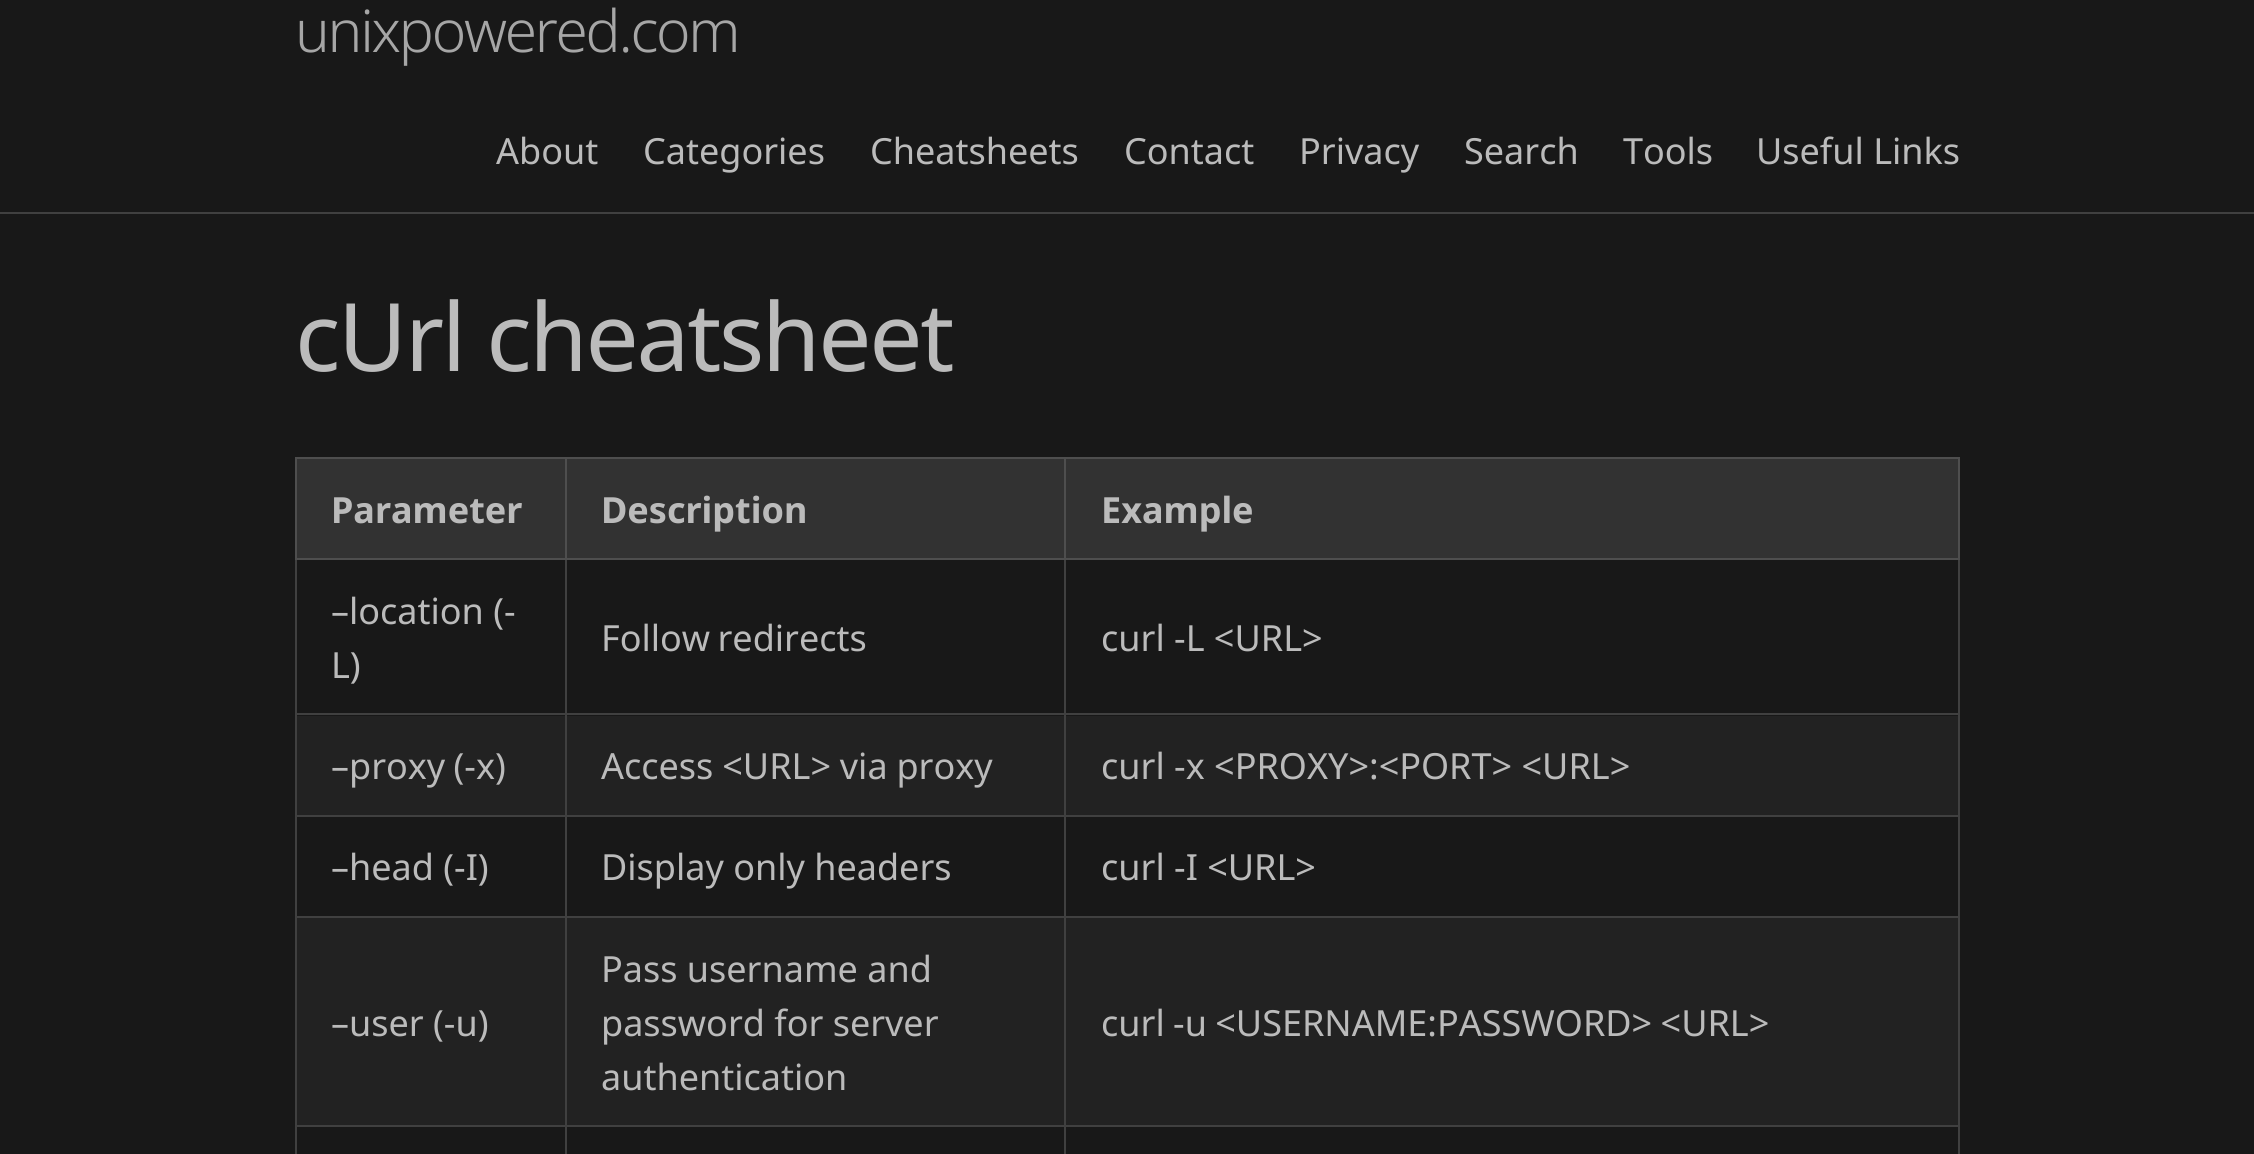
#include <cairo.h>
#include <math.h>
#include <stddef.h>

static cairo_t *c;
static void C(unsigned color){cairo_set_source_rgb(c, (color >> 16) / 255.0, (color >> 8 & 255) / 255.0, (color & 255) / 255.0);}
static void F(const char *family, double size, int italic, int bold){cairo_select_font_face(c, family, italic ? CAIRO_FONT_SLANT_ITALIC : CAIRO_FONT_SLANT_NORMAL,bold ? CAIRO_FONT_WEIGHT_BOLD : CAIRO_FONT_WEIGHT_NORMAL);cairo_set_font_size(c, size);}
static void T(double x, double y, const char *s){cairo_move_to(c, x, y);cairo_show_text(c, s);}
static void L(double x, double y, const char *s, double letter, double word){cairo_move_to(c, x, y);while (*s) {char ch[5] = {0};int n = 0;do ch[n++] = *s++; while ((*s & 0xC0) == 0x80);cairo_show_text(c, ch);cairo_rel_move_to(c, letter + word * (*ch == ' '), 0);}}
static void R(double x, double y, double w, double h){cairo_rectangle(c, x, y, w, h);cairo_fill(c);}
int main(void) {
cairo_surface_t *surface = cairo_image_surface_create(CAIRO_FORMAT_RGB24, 2254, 1154);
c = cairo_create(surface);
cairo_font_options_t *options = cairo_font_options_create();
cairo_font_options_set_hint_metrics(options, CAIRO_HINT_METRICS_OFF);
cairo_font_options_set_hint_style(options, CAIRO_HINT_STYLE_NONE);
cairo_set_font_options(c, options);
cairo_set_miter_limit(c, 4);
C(0x181818);
cairo_paint(c);
C(0x404040);
R(0,212,2254,2);
F("Noto Sans Light",58.5,0,0);
C(0xa6a6a6);
L(295,52,"unixpowered.com",-2.25,0);
F("Noto Sans",36,0,0);
C(0xbbbbbb);
T(496,164,"About");
T(643,164,"Categories");
T(870,164,"Cheatsheets");
T(1124,164,"Contact");
T(1299,164,"Privacy");
T(1464,164,"Search");
T(1623,164,"Tools");
T(1756,164,"Useful Links");
F("Noto Sans",94.5,0,0);
L(295,371,"cUrl cheatsheet",-2.25,0);
C(0x404040);
R(1958,560,2,594);
R(295,560,2,594);
C(0x323232);
R(297,459,268,99);
C(0x4e4e4e);
R(1064,457,896,2);
C(0x323232);
R(567,459,1391,99);
C(0x4e4e4e);
R(1958,457,2,103);
C(0x404040);
R(1064,713,896,2);
C(0x222222);
R(297,716,1661,99);
C(0x404040);
R(1064,815,896,2);
R(1064,916,896,2);
C(0x222222);
R(297,918,1661,207);
C(0x404040);
R(1064,1125,896,2);
R(1064,1125,2,29);
R(565,1125,502,2);
R(1064,916,2,211);
R(565,916,502,2);
R(1064,815,2,103);
R(565,815,502,2);
R(1064,713,2,104);
R(565,713,502,2);
R(1064,558,2,158);
C(0x4e4e4e);
R(1064,558,896,2);
R(1064,457,2,103);
R(565,457,502,2);
C(0x404040);
R(565,1125,2,29);
R(295,1125,272,2);
R(565,916,2,211);
R(295,916,272,2);
R(565,815,2,103);
R(295,815,272,2);
R(565,713,2,104);
R(295,713,272,2);
R(565,558,2,158);
C(0x4e4e4e);
R(565,558,502,2);
R(565,457,2,103);
R(295,457,272,2);
R(295,558,272,2);
R(295,457,2,103);
F("Noto Sans",36,0,1);
C(0xbbbbbb);
T(331,523,"Parameter");
T(601,523,"Description");
T(1101,523,"Example");
F("Noto Sans",36,0,0);
T(331,624,"–location (-");
T(331,678,"L)");
L(601,651,"Follow redirects",0,-2);
T(1101,651,"curl -L <URL>");
L(331,779,"–proxy (-x)",0,-1);
L(601,779,"Access <URL> via proxy",0,-.5);
T(1101,779,"curl -x <PROXY>:<PORT> <URL>");
T(331,880,"–head (-I)");
T(601,880,"Display only headers");
T(1101,880,"curl -I <URL>");
T(331,1036,"–user (-u)");
T(601,982,"Pass username and");
T(601,1036,"password for server");
T(601,1090,"authentication");
L(1101,1036,"curl -u <USERNAME:PASSWORD> <URL>",0,-1);
cairo_surface_write_to_png(surface, "o.png");
cairo_font_options_destroy(options);
cairo_destroy(c);
cairo_surface_destroy(surface);
return 0;
}
